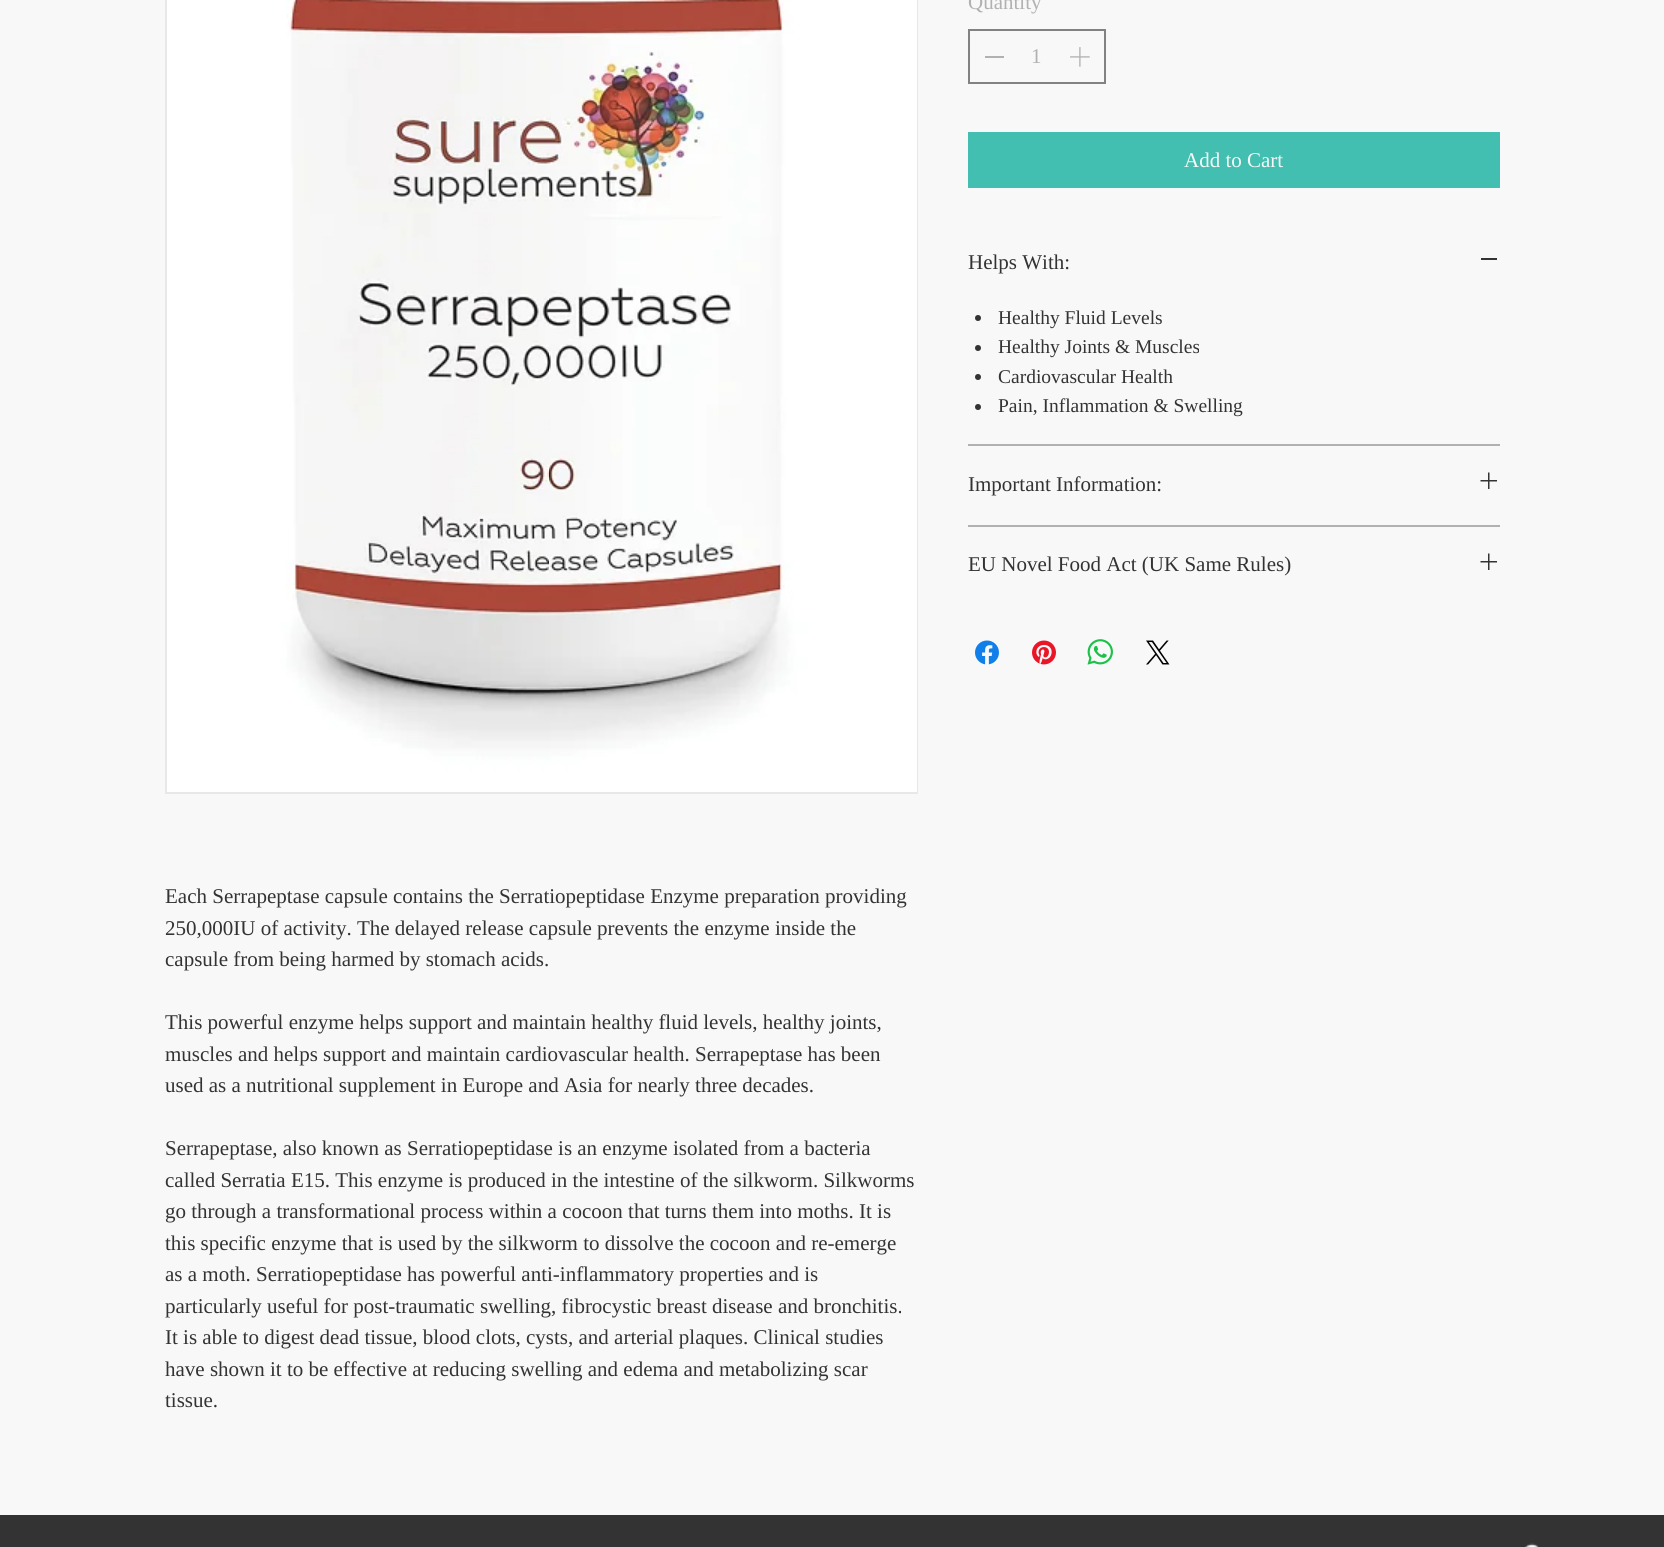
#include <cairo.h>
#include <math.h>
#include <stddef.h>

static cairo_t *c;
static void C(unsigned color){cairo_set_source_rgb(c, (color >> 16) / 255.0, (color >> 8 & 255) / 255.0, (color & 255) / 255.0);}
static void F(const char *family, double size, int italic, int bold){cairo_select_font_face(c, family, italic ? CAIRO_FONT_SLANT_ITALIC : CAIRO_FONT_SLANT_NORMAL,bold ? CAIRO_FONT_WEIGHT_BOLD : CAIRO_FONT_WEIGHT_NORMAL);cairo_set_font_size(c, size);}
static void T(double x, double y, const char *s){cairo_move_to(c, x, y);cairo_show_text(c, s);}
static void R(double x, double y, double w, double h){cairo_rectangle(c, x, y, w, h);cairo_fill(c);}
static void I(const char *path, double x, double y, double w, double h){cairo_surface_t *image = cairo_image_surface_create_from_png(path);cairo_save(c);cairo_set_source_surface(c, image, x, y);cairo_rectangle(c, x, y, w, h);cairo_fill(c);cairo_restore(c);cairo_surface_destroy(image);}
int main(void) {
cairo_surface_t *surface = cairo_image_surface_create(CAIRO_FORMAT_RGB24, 1664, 1547);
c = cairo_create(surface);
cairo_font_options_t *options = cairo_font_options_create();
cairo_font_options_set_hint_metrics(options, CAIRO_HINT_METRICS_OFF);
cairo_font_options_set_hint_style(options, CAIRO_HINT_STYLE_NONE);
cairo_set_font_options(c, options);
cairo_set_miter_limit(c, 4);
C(0xf8f8f8);
cairo_paint(c);
F("Liberation Serif",21,0,0);
C(0xb2b1b1);
T(968,9,"Quantity");
cairo_rectangle(c,969,30,136,53);
C(0x828282);
cairo_stroke(c);
C(0xb2b1b1);
R(985,56,19,2);
T(1031,63,"1");
I("1.png",1070,47,20,20);
C(0x42bfb0);
R(968,132,532,56);
C(0xf8f8f8);
T(1184,167,"Add to Cart");
C(0xb2b1b1);
R(968,444,532,2);
C(0x333333);
T(968,269,"Helps With:");
R(1481,258,16,2);
cairo_new_path(c);
cairo_arc(c,978,318,3,0,2 * M_PI);
cairo_fill(c);
F("Liberation Serif",19.5,0,0);
T(998,324,"Healthy Fluid Levels");
cairo_new_path(c);
cairo_arc(c,978,348,3,0,2 * M_PI);
cairo_fill(c);
T(998,353,"Healthy Joints & Muscles");
cairo_new_path(c);
cairo_arc(c,978,377,3,0,2 * M_PI);
cairo_fill(c);
T(998,383,"Cardiovascular Health");
cairo_new_path(c);
cairo_arc(c,978,407,3,0,2 * M_PI);
cairo_fill(c);
T(998,412,"Pain, Inflammation & Swelling");
C(0xb2b1b1);
R(968,525,532,2);
F("Liberation Serif",21,0,0);
C(0x333333);
T(968,491,"Important Information:");
I("2.png",1480,472,17,17);
T(968,571,"EU Novel Food Act (UK Same Rules)");
I("2.png",1480,553,17,17);
I("3.png",975,640,24,25);
I("4.png",1032,640,24,25);
I("5.png",1087,639,26,26);
I("6.png",1146,640,24,25);
cairo_rectangle(c,166,-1,751,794);
C(0xe8e8e8);
cairo_stroke(c);
I("7.png",167,0,750,792);
C(0x333333);
T(165,903,"Each Serrapeptase capsule contains the Serratiopeptidase Enzyme preparation providing");
T(165,935,"250,000IU of activity. The delayed release capsule prevents the enzyme inside the");
T(165,966,"capsule from being harmed by stomach acids.");
T(165,1029,"This powerful enzyme helps support and maintain healthy fluid levels, healthy joints,");
T(165,1061,"muscles and helps support and maintain cardiovascular health. Serrapeptase has been");
T(165,1092,"used as a nutritional supplement in Europe and Asia for nearly three decades.");
T(165,1155,"Serrapeptase, also known as Serratiopeptidase is an enzyme isolated from a bacteria");
T(165,1187,"called Serratia E15. This enzyme is produced in the intestine of the silkworm. Silkworms");
T(165,1218,"go through a transformational process within a cocoon that turns them into moths. It is");
T(165,1250,"this specific enzyme that is used by the silkworm to dissolve the cocoon and re-emerge");
T(165,1281,"as a moth. Serratiopeptidase has powerful anti-inflammatory properties and is");
T(165,1313,"particularly useful for post-traumatic swelling, fibrocystic breast disease and bronchitis.");
T(165,1344,"It is able to digest dead tissue, blood clots, cysts, and arterial plaques. Clinical studies");
T(165,1376,"have shown it to be effective at reducing swelling and edema and metabolizing scar");
T(165,1407,"tissue.");
R(0,1515,1664,32);
I("8.png",1525,1543,14,4);
cairo_surface_write_to_png(surface, "o.png");
cairo_font_options_destroy(options);
cairo_destroy(c);
cairo_surface_destroy(surface);
return 0;
}
